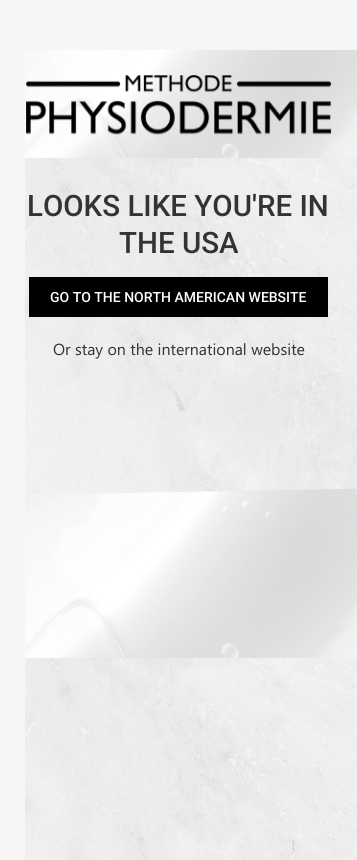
#include <cairo.h>
#include <math.h>
#include <stddef.h>

static cairo_t *c;
static void C(unsigned color){cairo_set_source_rgb(c, (color >> 16) / 255.0, (color >> 8 & 255) / 255.0, (color & 255) / 255.0);}
static void F(const char *family, double size, int italic, int bold){cairo_select_font_face(c, family, italic ? CAIRO_FONT_SLANT_ITALIC : CAIRO_FONT_SLANT_NORMAL,bold ? CAIRO_FONT_WEIGHT_BOLD : CAIRO_FONT_WEIGHT_NORMAL);cairo_set_font_size(c, size);}
static void T(double x, double y, const char *s){cairo_move_to(c, x, y);cairo_show_text(c, s);}
static void R(double x, double y, double w, double h){cairo_rectangle(c, x, y, w, h);cairo_fill(c);}
static void I(const char *path, double x, double y, double w, double h){cairo_surface_t *image = cairo_image_surface_create_from_png(path);cairo_save(c);cairo_set_source_surface(c, image, x, y);cairo_rectangle(c, x, y, w, h);cairo_fill(c);cairo_restore(c);cairo_surface_destroy(image);}
int main(void) {
cairo_surface_t *surface = cairo_image_surface_create(CAIRO_FORMAT_RGB24, 357, 860);
c = cairo_create(surface);
cairo_font_options_t *options = cairo_font_options_create();
cairo_font_options_set_hint_metrics(options, CAIRO_HINT_METRICS_OFF);
cairo_font_options_set_hint_style(options, CAIRO_HINT_STYLE_NONE);
cairo_set_font_options(c, options);
cairo_set_miter_limit(c, 4);
C(0xf6f6f6);
cairo_paint(c);
I("1.png",25,50,332,810);
I("2.png",26,75,306,60);
F("Roboto Medium",29.5,0,0);
C(0x333333);
T(27,216,"LOOKS LIKE YOU'RE IN");
T(119,253,"THE USA");
C(0x000000);
R(29,277,299,40);
F("Roboto Medium",14,0,0);
C(0xffffff);
T(50,302,"GO TO THE NORTH AMERICAN WEBSITE");
F("Segoe UI",16,0,0);
C(0x333333);
T(53,355,"Or stay on the international website");
cairo_surface_write_to_png(surface, "o.png");
cairo_font_options_destroy(options);
cairo_destroy(c);
cairo_surface_destroy(surface);
return 0;
}
